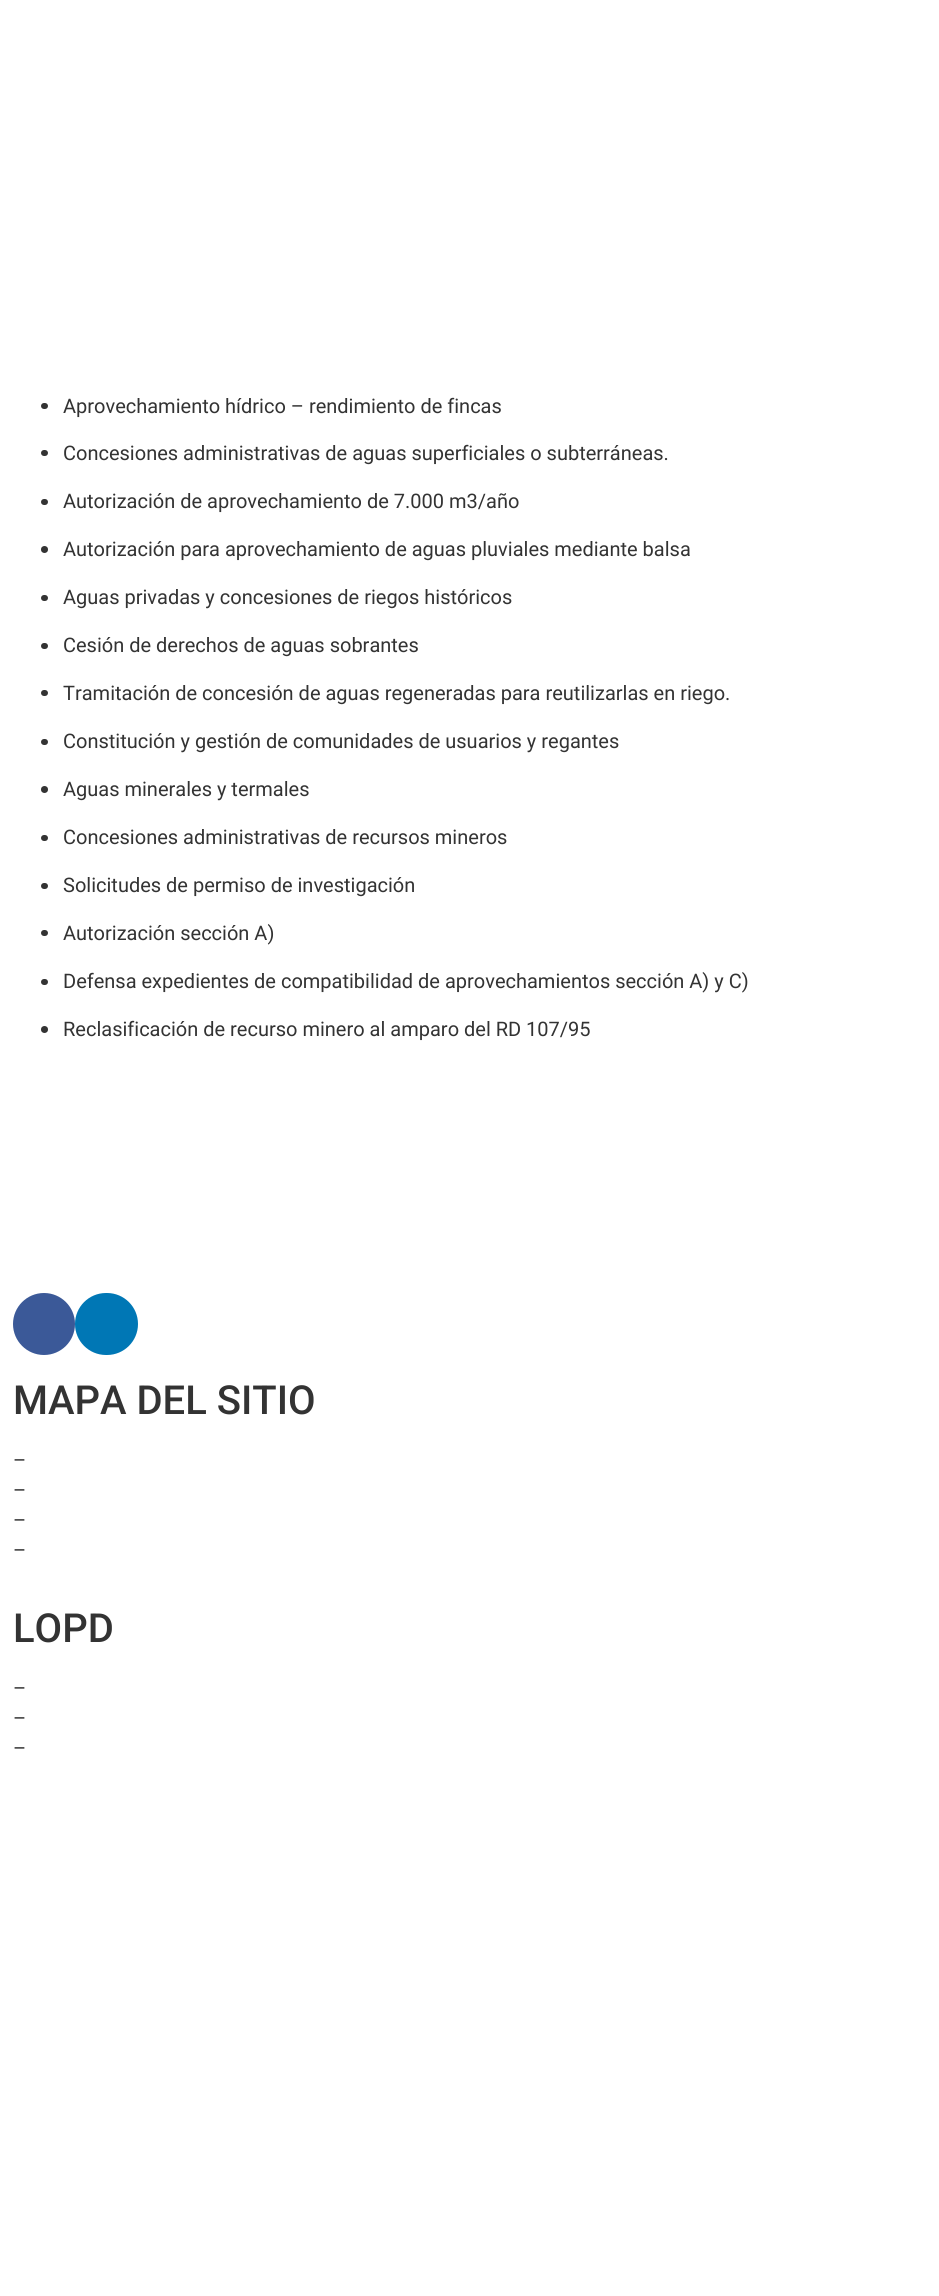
#include <cairo.h>
#include <math.h>
#include <stddef.h>

static cairo_t *c;
static void C(unsigned color){cairo_set_source_rgb(c, (color >> 16) / 255.0, (color >> 8 & 255) / 255.0, (color & 255) / 255.0);}
static void F(const char *family, double size, int italic, int bold){cairo_select_font_face(c, family, italic ? CAIRO_FONT_SLANT_ITALIC : CAIRO_FONT_SLANT_NORMAL,bold ? CAIRO_FONT_WEIGHT_BOLD : CAIRO_FONT_WEIGHT_NORMAL);cairo_set_font_size(c, size);}
static void T(double x, double y, const char *s){cairo_move_to(c, x, y);cairo_show_text(c, s);}
static void Q(double x, double y, double w, double h, double r){cairo_new_sub_path(c);cairo_arc(c, x + w - r, y + h - r, r, 0, M_PI / 2);cairo_arc(c, x + r, y + h - r, r, M_PI / 2, M_PI);cairo_arc(c, x + r, y + r, r, M_PI, 1.5 * M_PI);cairo_arc(c, x + w - r, y + r, r, 1.5 * M_PI, 2 * M_PI);cairo_close_path(c);}
int main(void) {
cairo_surface_t *surface = cairo_image_surface_create(CAIRO_FORMAT_RGB24, 939, 2296);
c = cairo_create(surface);
cairo_font_options_t *options = cairo_font_options_create();
cairo_font_options_set_hint_metrics(options, CAIRO_HINT_METRICS_OFF);
cairo_font_options_set_hint_style(options, CAIRO_HINT_STYLE_NONE);
cairo_set_font_options(c, options);
cairo_set_miter_limit(c, 4);
C(0xffffff);
cairo_paint(c);
C(0x333333);
Q(41,403,7,6,3);
cairo_fill(c);
F("Roboto",20,0,0);
T(63,413,"Aprovechamiento hídrico – rendimiento de fincas");
Q(41,450,7,6,3);
cairo_fill(c);
T(63,460,"Concesiones administrativas de aguas superficiales o subterráneas.");
Q(41,499,7,6,3);
cairo_fill(c);
T(63,508,"Autorización de aprovechamiento de 7.000 m3/año");
cairo_new_path(c);
cairo_arc(c,44.5,549.5,3.5,0,2 * M_PI);
cairo_fill(c);
T(63,556,"Autorización para aprovechamiento de aguas pluviales mediante balsa");
Q(41,595,7,6,3);
cairo_fill(c);
T(63,604,"Aguas privadas y concesiones de riegos históricos");
Q(41,643,7,6,3);
cairo_fill(c);
T(63,652,"Cesión de derechos de aguas sobrantes");
Q(41,690,7,6,3);
cairo_fill(c);
T(63,700,"Tramitación de concesión de aguas regeneradas para reutilizarlas en riego.");
Q(41,739,7,6,3);
cairo_fill(c);
T(63,748,"Constitución y gestión de comunidades de usuarios y regantes");
cairo_new_path(c);
cairo_arc(c,44.5,789.5,3.5,0,2 * M_PI);
cairo_fill(c);
T(63,796,"Aguas minerales y termales");
Q(41,835,7,6,3);
cairo_fill(c);
T(63,844,"Concesiones administrativas de recursos mineros");
Q(41,883,7,6,3);
cairo_fill(c);
T(63,892,"Solicitudes de permiso de investigación");
Q(41,930,7,6,3);
cairo_fill(c);
T(63,940,"Autorización sección A)");
Q(41,979,7,6,3);
cairo_fill(c);
T(63,988,"Defensa expedientes de compatibilidad de aprovechamientos sección A) y C)");
cairo_new_path(c);
cairo_arc(c,44.5,1029.5,3.5,0,2 * M_PI);
cairo_fill(c);
T(63,1036,"Reclasificación de recurso minero al amparo del RD 107/95");
C(0x3b5998);
cairo_new_path(c);
cairo_arc(c,44,1324,31,0,2 * M_PI);
cairo_fill(c);
C(0x0077b5);
Q(75,1293,63,62,31);
cairo_fill(c);
F("Roboto Medium",40,0,0);
C(0x333333);
T(13,1414,"MAPA DEL SITIO");
F("Roboto",20,0,0);
T(13,1467,"–");
T(13,1497,"–");
T(13,1527,"–");
T(13,1557,"–");
F("Roboto Medium",40,0,0);
T(13,1642,"LOPD");
F("Roboto",20,0,0);
T(13,1695,"–");
T(13,1725,"–");
T(13,1755,"–");
cairo_surface_write_to_png(surface, "o.png");
cairo_font_options_destroy(options);
cairo_destroy(c);
cairo_surface_destroy(surface);
return 0;
}
